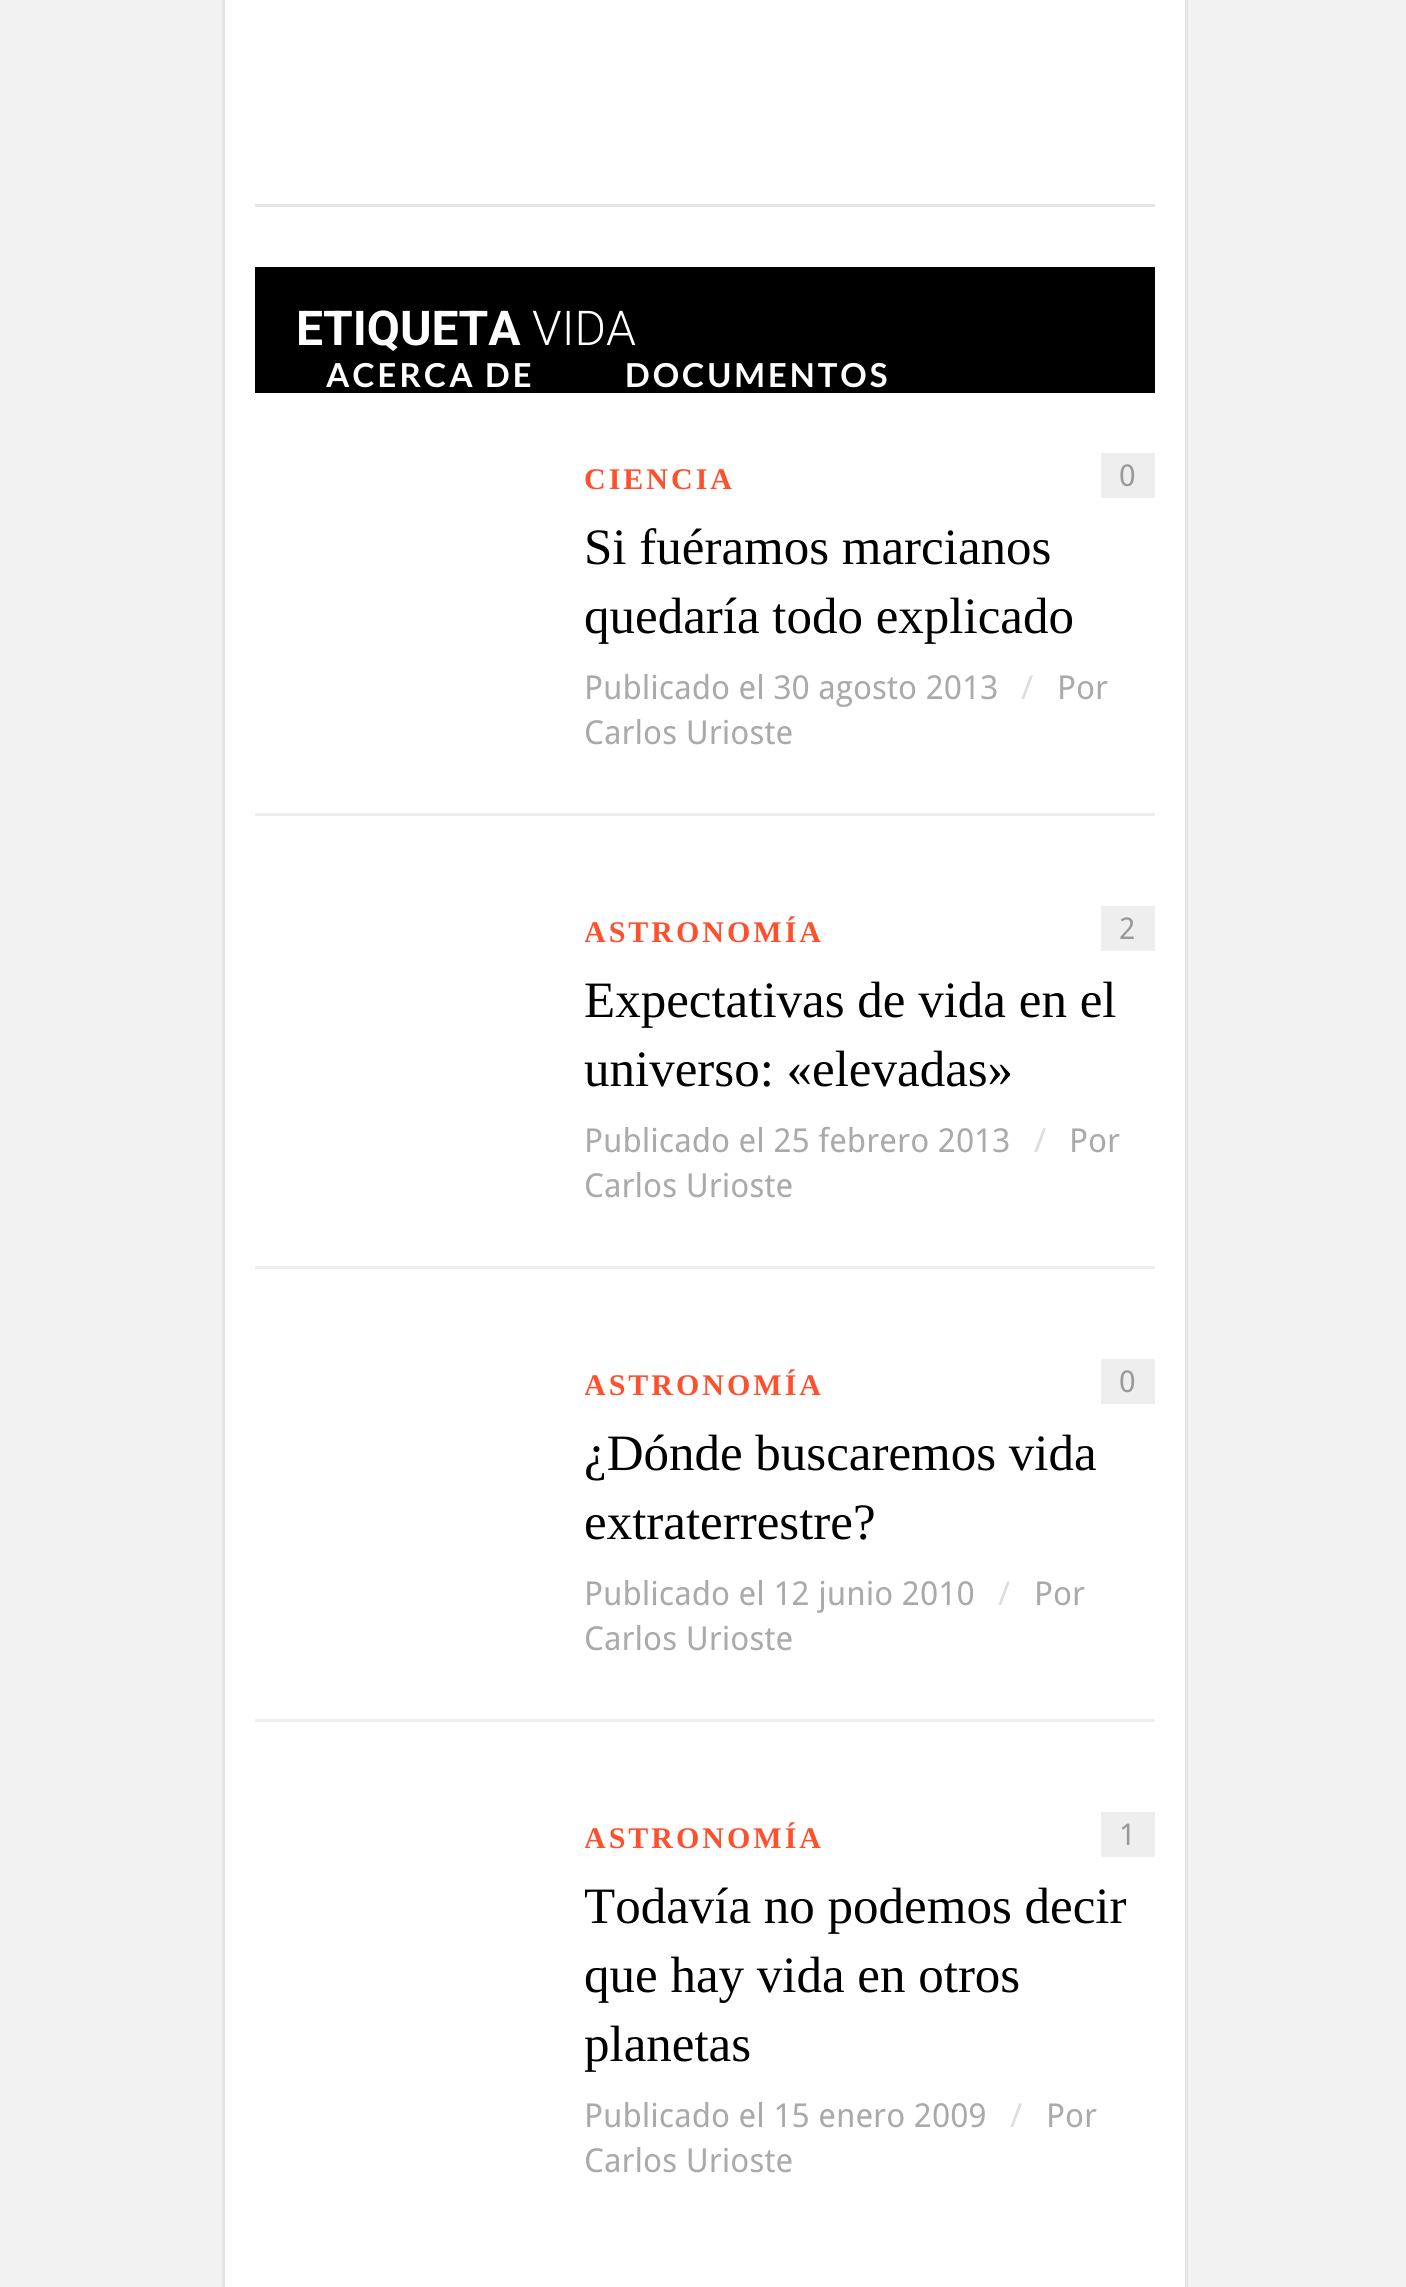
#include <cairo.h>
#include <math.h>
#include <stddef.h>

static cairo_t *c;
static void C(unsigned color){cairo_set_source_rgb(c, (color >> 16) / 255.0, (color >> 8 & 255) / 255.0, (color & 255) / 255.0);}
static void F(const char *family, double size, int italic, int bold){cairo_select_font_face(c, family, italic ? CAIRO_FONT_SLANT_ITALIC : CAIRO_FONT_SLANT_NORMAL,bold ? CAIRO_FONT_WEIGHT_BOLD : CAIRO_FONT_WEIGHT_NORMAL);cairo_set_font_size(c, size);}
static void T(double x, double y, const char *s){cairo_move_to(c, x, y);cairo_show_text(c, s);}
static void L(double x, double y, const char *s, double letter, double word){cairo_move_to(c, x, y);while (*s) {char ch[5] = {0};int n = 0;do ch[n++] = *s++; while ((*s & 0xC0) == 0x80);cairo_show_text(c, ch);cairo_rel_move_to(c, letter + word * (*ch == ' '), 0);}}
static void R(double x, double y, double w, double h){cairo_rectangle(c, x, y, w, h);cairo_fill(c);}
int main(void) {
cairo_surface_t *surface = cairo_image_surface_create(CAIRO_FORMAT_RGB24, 1406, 2287);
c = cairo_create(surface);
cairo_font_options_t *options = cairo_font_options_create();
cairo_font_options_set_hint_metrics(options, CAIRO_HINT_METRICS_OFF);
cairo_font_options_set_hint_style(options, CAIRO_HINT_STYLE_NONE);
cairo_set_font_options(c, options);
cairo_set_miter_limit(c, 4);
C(0xf2f2f2);
cairo_paint(c);
C(0xffffff);
R(225,0,960,2287);
C(0xe5e5e5);
R(1185,0,3,2287);
R(222,0,3,2287);
R(255,204,900,3);
C(0x000000);
R(255,267,900,126);
F("Roboto",48,0,1);
C(0xffffff);
T(296,345,"ETIQUETA");
F("Roboto Light",48,0,0);
T(532,345,"VIDA");
C(0xeeeeee);
R(255,813,900,3);
F("Liberation Serif",30,0,1);
C(0xff502e);
L(584,489,"CIENCIA",3,0);
C(0xeeeeee);
R(1101,453,54,45);
F("Droid Sans",30,0,0);
C(0x999999);
T(1119,486,"0");
F("Liberation Serif",51,0,0);
C(0x000000);
T(584,564,"Si fuéramos marcianos");
T(584,633,"quedaría todo explicado");
F("Droid Sans",33,0,0);
C(0xaaaaaa);
T(584,699,"Publicado el 30 agosto 2013");
C(0xdddddd);
T(1021,699,"/");
C(0xaaaaaa);
T(1057,699,"Por");
T(584,744,"Carlos Urioste");
C(0xeeeeee);
R(255,1266,900,3);
cairo_save(c);
cairo_rectangle(c,585,906,570,300);
cairo_clip(c);
F("Liberation Serif",30,0,1);
C(0xff502e);
L(584,942,"ASTRONOMÍA",3,0);
cairo_restore(c);
R(1101,906,54,45);
F("Droid Sans",30,0,0);
C(0x999999);
T(1119,939,"2");
F("Liberation Serif",51,0,0);
C(0x000000);
T(584,1017,"Expectativas de vida en el");
T(584,1086,"universo: «elevadas»");
F("Droid Sans",33,0,0);
C(0xaaaaaa);
T(584,1152,"Publicado el 25 febrero 2013");
C(0xdddddd);
T(1034,1152,"/");
C(0xaaaaaa);
T(1069,1152,"Por");
T(584,1197,"Carlos Urioste");
C(0xeeeeee);
R(255,1719,900,3);
cairo_save(c);
cairo_rectangle(c,585,1359,570,300);
cairo_clip(c);
F("Liberation Serif",30,0,1);
C(0xff502e);
L(584,1395,"ASTRONOMÍA",3,0);
cairo_restore(c);
R(1101,1359,54,45);
F("Droid Sans",30,0,0);
C(0x999999);
T(1119,1392,"0");
F("Liberation Serif",51,0,0);
C(0x000000);
T(584,1470,"¿Dónde buscaremos vida");
T(584,1539,"extraterrestre?");
F("Droid Sans",33,0,0);
C(0xaaaaaa);
T(584,1605,"Publicado el 12 junio 2010");
C(0xdddddd);
T(998,1605,"/");
C(0xaaaaaa);
T(1034,1605,"Por");
T(584,1650,"Carlos Urioste");
cairo_save(c);
cairo_rectangle(c,585,1812,570,369);
cairo_clip(c);
F("Liberation Serif",30,0,1);
C(0xff502e);
L(584,1848,"ASTRONOMÍA",3,0);
cairo_restore(c);
C(0xeeeeee);
R(1101,1812,54,45);
F("Droid Sans",30,0,0);
C(0x999999);
T(1119,1845,"1");
cairo_save(c);
cairo_rectangle(c,585,1812,570,369);
cairo_clip(c);
F("Liberation Serif",51,0,0);
C(0x000000);
T(584,1923,"Todavía no podemos decir");
cairo_restore(c);
F("Liberation Serif",51,0,0);
C(0x000000);
T(584,1992,"que hay vida en otros");
cairo_save(c);
cairo_rectangle(c,585,1812,570,369);
cairo_clip(c);
T(584,2061,"planetas");
cairo_restore(c);
F("Droid Sans",33,0,0);
C(0xaaaaaa);
T(584,2127,"Publicado el 15 enero 2009");
C(0xdddddd);
T(1010,2127,"/");
C(0xaaaaaa);
T(1046,2127,"Por");
T(584,2172,"Carlos Urioste");
F("Lato",33,0,1);
C(0xffffff);
L(326,387,"ACERCA DE",3,0);
L(625,387,"DOCUMENTOS",3,0);
cairo_surface_write_to_png(surface, "o.png");
cairo_font_options_destroy(options);
cairo_destroy(c);
cairo_surface_destroy(surface);
return 0;
}
